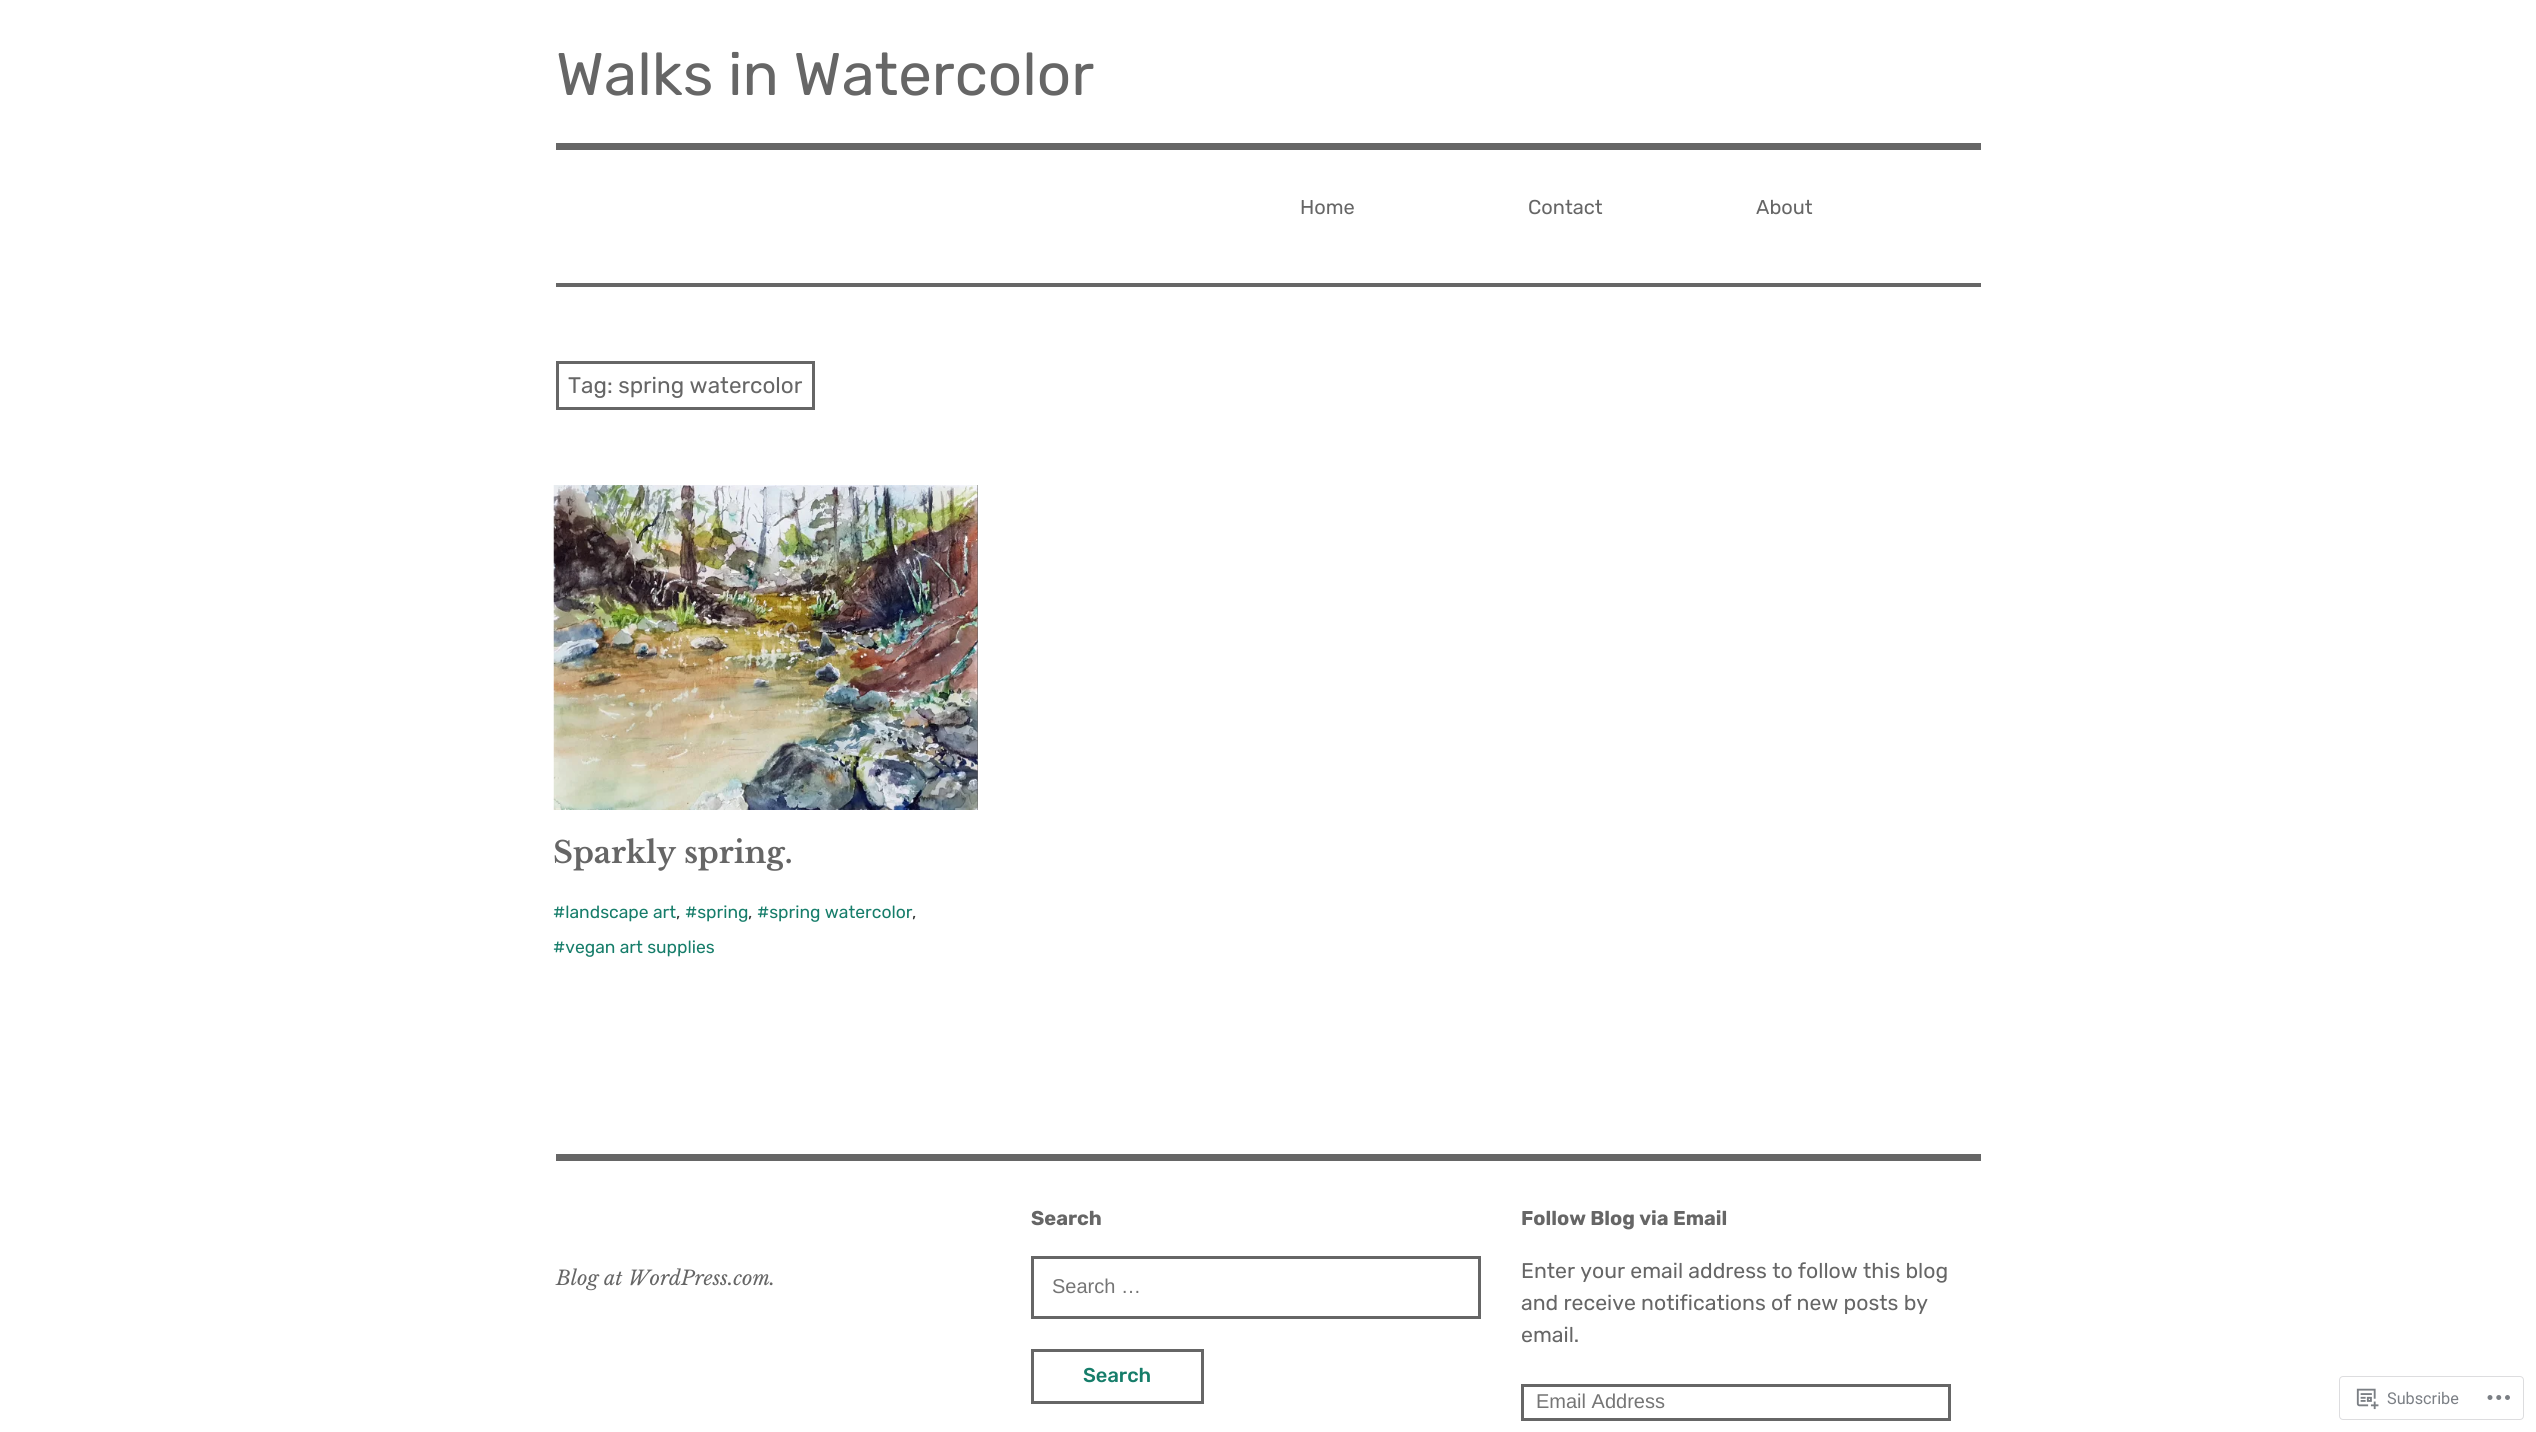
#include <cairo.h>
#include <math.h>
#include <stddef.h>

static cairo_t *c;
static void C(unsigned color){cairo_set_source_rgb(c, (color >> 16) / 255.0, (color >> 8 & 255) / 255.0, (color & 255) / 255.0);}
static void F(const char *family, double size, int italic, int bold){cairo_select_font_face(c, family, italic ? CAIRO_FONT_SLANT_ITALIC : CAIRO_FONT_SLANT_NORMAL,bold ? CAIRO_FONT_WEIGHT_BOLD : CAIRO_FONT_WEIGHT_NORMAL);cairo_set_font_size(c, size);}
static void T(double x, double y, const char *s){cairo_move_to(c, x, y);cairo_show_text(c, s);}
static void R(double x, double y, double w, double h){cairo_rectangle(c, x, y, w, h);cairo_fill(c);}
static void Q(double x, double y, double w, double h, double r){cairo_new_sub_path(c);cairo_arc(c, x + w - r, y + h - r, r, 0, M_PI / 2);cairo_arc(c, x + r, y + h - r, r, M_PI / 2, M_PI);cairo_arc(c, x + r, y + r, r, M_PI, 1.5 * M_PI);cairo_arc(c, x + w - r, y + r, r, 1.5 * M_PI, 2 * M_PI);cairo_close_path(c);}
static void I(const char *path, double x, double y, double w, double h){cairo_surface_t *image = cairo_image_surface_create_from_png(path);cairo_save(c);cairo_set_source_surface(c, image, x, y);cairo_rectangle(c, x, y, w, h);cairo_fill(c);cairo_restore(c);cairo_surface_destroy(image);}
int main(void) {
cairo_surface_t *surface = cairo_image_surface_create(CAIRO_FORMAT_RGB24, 2536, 1432);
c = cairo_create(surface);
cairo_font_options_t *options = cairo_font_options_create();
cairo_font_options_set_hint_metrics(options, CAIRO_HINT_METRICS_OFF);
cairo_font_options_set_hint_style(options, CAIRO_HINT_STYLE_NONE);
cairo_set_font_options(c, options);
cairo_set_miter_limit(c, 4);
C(0xffffff);
cairo_paint(c);
C(0x666666);
R(556,143,1425,7);
F("Rubik",60,0,0);
T(556,95,"Walks in Watercolor");
F("Rubik",20,0,0);
T(1300,214,"Home");
T(1528,214,"Contact");
T(1756,214,"About");
R(556,283,1425,4);
cairo_rectangle(c,557.5,362.5,256,46);
cairo_set_line_width(c,3);
cairo_stroke(c);
F("Rubik",22.5,0,0);
T(568,393,"Tag: spring watercolor");
R(977,485,1,325);
I("1.png",553,485,425,325);
F("Libre Baskerville",30,0,1);
T(553,863,"Sparkly spring.");
F("Rubik",17.5,0,0);
C(0x167d6a);
T(553,918,"#landscape art");
C(0x353535);
T(676,918,",");
C(0x167d6a);
T(685,918,"#spring");
C(0x353535);
T(748,918,",");
C(0x167d6a);
T(757,918,"#spring watercolor");
C(0x353535);
T(912,918,",");
C(0x167d6a);
T(553,953,"#vegan art supplies");
C(0x666666);
R(556,1154,1425,7);
F("Libre Baskerville",20,1,0);
T(556,1285,"Blog at WordPress.com.");
F("Rubik",20,0,1);
T(1031,1225,"Search");
cairo_rectangle(c,1032.5,1257.5,447,60);
cairo_stroke(c);
F("Liberation Sans",20,0,0);
C(0x757575);
T(1052,1293,"Search …");
cairo_rectangle(c,1032.5,1350.5,170,52);
C(0x666666);
cairo_stroke(c);
F("Rubik Medium",20,0,0);
C(0x167d6a);
T(1083,1382,"Search");
F("Rubik",20,0,1);
C(0x666666);
T(1521,1225,"Follow Blog via Email");
F("Rubik",21.25,0,0);
T(1521,1278,"Enter your email address to follow this blog");
T(1521,1310,"and receive notifications of new posts by");
T(1521,1342,"email.");
cairo_rectangle(c,1522.5,1385.5,427,34);
cairo_stroke(c);
F("Liberation Sans",20,0,0);
C(0x757575);
T(1536,1408,"Email Address");
Q(2339.5,1376.5,184,43,3.5);
C(0xdddddf);
cairo_set_line_width(c,1);
cairo_stroke(c);
I("2.png",2356,1388,23,22);
F("Roboto",16.25,0,0);
C(0x7b7f85);
T(2387,1404,"Subscribe");
I("3.png",2487,1395,23,5);
cairo_surface_write_to_png(surface, "o.png");
cairo_font_options_destroy(options);
cairo_destroy(c);
cairo_surface_destroy(surface);
return 0;
}
